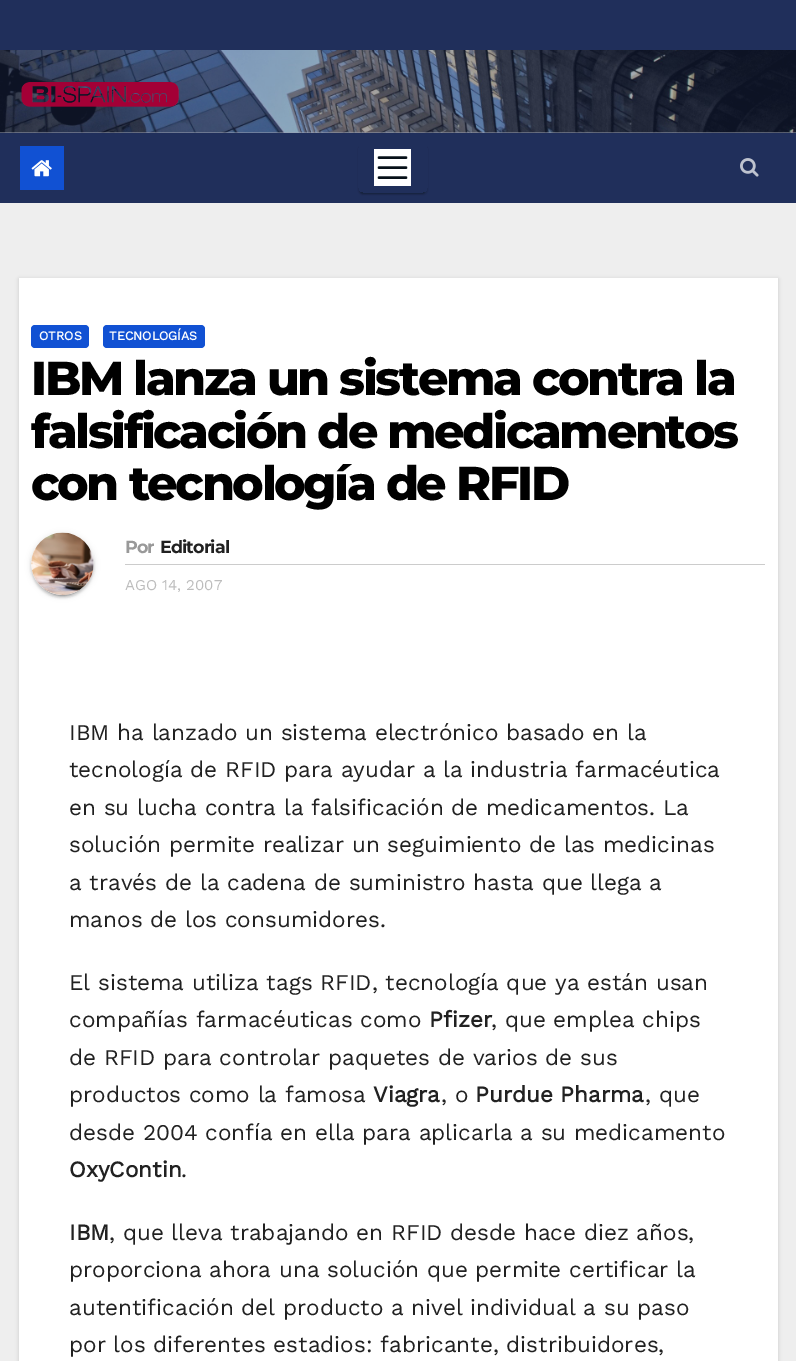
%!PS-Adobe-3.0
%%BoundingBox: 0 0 796 1361
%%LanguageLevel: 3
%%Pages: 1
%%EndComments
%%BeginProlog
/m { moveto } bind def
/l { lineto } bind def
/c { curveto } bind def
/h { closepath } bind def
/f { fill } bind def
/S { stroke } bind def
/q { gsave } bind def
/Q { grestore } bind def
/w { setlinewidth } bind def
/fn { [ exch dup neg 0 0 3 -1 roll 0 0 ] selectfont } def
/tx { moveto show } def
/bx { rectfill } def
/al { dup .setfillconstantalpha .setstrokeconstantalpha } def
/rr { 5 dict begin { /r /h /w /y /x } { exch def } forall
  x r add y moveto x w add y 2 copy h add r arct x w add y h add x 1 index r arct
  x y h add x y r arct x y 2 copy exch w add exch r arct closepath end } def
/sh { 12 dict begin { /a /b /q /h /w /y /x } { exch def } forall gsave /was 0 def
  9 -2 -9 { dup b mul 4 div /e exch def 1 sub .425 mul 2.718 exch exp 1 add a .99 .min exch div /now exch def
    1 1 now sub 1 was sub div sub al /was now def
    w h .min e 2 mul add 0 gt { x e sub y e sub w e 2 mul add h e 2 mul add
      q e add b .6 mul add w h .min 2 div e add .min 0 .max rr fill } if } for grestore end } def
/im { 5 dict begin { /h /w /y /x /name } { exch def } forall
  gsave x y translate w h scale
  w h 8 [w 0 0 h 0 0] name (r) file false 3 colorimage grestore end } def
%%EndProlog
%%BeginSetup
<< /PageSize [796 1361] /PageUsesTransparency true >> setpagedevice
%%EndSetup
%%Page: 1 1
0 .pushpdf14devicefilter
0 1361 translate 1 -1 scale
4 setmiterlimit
0.933 setgray
0 0 796 1361 bx
0.612 0.635 0.702 setrgbcolor
0 132 796 1 bx
0.125 0.184 0.357 setrgbcolor
0 0 796 50 bx
(image0.raw) 0 50 796 83 im
(image1.raw) 21 82 158 25 im
0 133 796 70 bx
0.067 0.318 0.827 setrgbcolor
20 146 44 44 bx
(image2.raw) 31 160 21 17 im
q
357 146 m 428 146 l 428 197 l 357 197 l h 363 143 m 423 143 l 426 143 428 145 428 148 c 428 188 l 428 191 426 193 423 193 c 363 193 l 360 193 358 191 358 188 c 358 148 l 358 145 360 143 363 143 c h eoclip newpath
0 setgray
360 149 65 45 2.5 0.5 0.2 sh
Q
q
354 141 m 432 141 l 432 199 l 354 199 l h 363 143 m 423 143 l 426 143 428 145 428 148 c 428 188 l 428 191 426 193 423 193 c 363 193 l 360 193 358 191 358 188 c 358 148 l 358 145 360 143 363 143 c h eoclip newpath
0 setgray
358 145 70 50 5 1 0.14 sh
Q
1 setgray
374 149 37 37 bx
0.024 0.063 0.094 setrgbcolor
2.5 w
1 setlinecap
379 157.5 m 406 157.5 l 379 167.5 m 406 167.5 l 379 177.5 m 406 177.5 l S
(image3.raw) 740 158 19 19 im
0 setgray
19 279 759 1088 0 2 0.15 sh
1 setgray
19 278 759 1083 bx
0.067 0.318 0.827 setrgbcolor
31 325 58 23 4 rr f
/WorkSans-Bold 12.5 fn
1 setgray
(OTROS) 39 340 tx
0.067 0.318 0.827 setrgbcolor
103 325 102 23 4 rr f
1 setgray
(TECNOLOGÍAS) 109 340 tx
/Montserrat-ExtraBold 47.5 fn
0 setgray
31 395 m -2.4 0 (IBM lanza un sistema contra la) ashow
31 448 m -2.4 0 (falsificación de medicamentos) ashow
31 500 m -2.4 0 (con tecnología de RFID) ashow
31 534 63 62 31 3 0.12 sh
34 539 57 57 28.5 0.5 0.2 sh
31 535 63 63 31.5 1 0.14 sh
(image4.raw) 31 532 63 63 im
0.8 setgray
125 564 640 1 bx
/Montserrat-Bold 17.5 fn
0.6 setgray
125 553 m -0.9 0 (Por) ashow
0.129 setgray
160 553 m -0.9 0 (Editorial) ashow
/WorkSans-Regular 15 fn
0.741 setgray
(AGO 14, 2007) 125 590 tx
/WorkSans-Regular 22.5 fn
0.129 setgray
(IBM ha lanzado un sistema electrónico basado en la) 69 740 tx
(tecnología de RFID para ayudar a la industria farmacéutica) 69 777 tx
(en su lucha contra la falsificación de medicamentos. La) 69 815 tx
(solución permite realizar un seguimiento de las medicinas) 69 852 tx
(a través de la cadena de suministro hasta que llega a) 69 890 tx
(manos de los consumidores.) 69 927 tx
(El sistema utiliza tags RFID, tecnología que ya están usan) 69 990 tx
(compañías farmacéuticas como) 69 1027 tx
/WorkSans-Bold 22.5 fn
(Pfizer) 429 1027 tx
/WorkSans-Regular 22.5 fn
(, que emplea chips) 491 1027 tx
(de RFID para controlar paquetes de varios de sus) 69 1065 tx
(productos como la famosa) 69 1102 tx
/WorkSans-Bold 22.5 fn
(Viagra) 373 1102 tx
/WorkSans-Regular 22.5 fn
(, o) 441 1102 tx
/WorkSans-Bold 22.5 fn
(Purdue Pharma) 475 1102 tx
/WorkSans-Regular 22.5 fn
(, que) 645 1102 tx
(desde 2004 confía en ella para aplicarla a su medicamento) 69 1140 tx
/WorkSans-Bold 22.5 fn
(OxyContin) 69 1177 tx
/WorkSans-Regular 22.5 fn
(.) 181 1177 tx
/WorkSans-Bold 22.5 fn
(IBM) 69 1240 tx
/WorkSans-Regular 22.5 fn
(, que lleva trabajando en RFID desde hace diez años,) 109 1240 tx
(proporciona ahora una solución que permite certificar la) 69 1277 tx
(autentificación del producto a nivel individual a su paso) 69 1315 tx
(por los diferentes estadios: fabricante, distribuidores,) 69 1352 tx
.poppdf14devicefilter showpage
%%EOF
